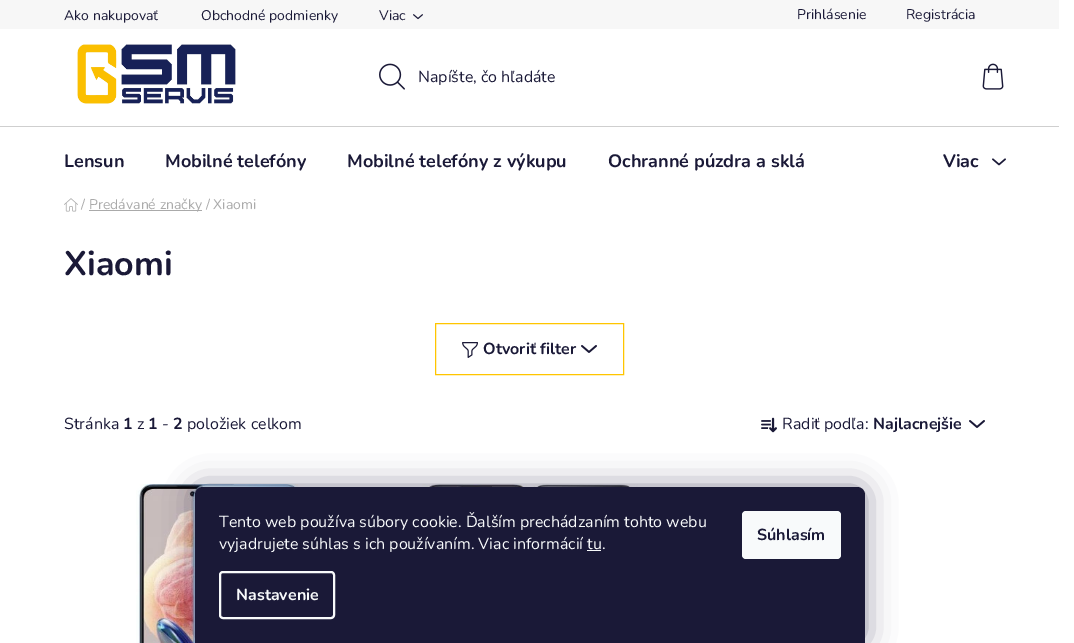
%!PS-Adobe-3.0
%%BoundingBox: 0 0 1074 643
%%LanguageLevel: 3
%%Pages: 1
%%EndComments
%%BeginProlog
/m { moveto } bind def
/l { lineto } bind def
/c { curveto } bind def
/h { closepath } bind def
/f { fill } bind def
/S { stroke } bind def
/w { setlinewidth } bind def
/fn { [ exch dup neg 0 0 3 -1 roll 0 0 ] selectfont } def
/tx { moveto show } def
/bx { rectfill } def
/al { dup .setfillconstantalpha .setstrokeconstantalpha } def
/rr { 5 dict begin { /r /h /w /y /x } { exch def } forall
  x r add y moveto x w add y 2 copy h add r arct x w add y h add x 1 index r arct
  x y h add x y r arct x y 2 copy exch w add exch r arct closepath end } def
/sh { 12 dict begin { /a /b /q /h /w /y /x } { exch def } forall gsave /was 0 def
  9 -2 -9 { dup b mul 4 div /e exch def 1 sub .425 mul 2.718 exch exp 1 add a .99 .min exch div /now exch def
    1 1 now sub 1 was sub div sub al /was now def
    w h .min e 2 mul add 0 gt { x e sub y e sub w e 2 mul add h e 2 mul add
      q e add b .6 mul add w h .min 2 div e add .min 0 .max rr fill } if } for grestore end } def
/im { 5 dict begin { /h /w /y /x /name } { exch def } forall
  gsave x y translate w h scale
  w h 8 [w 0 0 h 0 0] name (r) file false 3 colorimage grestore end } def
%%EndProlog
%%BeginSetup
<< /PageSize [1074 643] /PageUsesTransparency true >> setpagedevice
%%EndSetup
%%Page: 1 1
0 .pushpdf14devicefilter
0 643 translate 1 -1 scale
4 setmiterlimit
1 setgray
0 0 1074 643 bx
0.969 setgray
0 0 1059 29 bx
/Nunito-Regular 14 fn
0.102 0.098 0.216 setrgbcolor
(Ako nakupovať) 64 20 tx
(Obchodné podmienky) 201 20 tx
(Viac) 379 20 tx
(image0.raw) 413 14 10 6 im
(Prihlásenie) 797 19 tx
(Registrácia) 906 19 tx
(image1.raw) 77 44 159 60 im
(image2.raw) 379 63 26 27 im
/Nunito-Regular 16 fn
(Napíšte, čo hľadáte) 418 82 tx
(image3.raw) 982 63 22 27 im
0.812 setgray
0 126 1059 1 bx
/Nunito-Bold 18 fn
0.102 0.098 0.216 setrgbcolor
(Lensun) 64 167 tx
(Mobilné telefóny) 165 167 tx
(Mobilné telefóny z výkupu) 347 167 tx
(Ochranné púzdra a sklá) 608 167 tx
(Viac) 943 167 tx
(image4.raw) 992 158 14 8 im
(image5.raw) 64 198 14 14 im
/Nunito-Regular 14 fn
0.667 setgray
(/) 81 209 tx
89 210 113 1 bx
(Predávané značky / Xiaomi) 89 209 tx
/Nunito-Bold 34 fn
0.102 0.098 0.216 setrgbcolor
(Xiaomi) 64 275 tx
1 0.773 0 setrgbcolor
435.5 323.5 188 51 rectstroke
(image6.raw) 462 342 16 16 im
/Nunito-Bold 16 fn
0.102 0.098 0.216 setrgbcolor
(Otvoriť filter) 483 354 tx
(image7.raw) 581 345 16 8 im
/Nunito-Regular 16 fn
(Stránka) 64 429 tx
/Nunito-Bold 16 fn
(1) 123 429 tx
/Nunito-Regular 16 fn
(z) 137 429 tx
/Nunito-Bold 16 fn
(1) 148 429 tx
/Nunito-Regular 16 fn
(-) 162 429 tx
/Nunito-Bold 16 fn
(2) 173 429 tx
/Nunito-Regular 16 fn
(položiek celkom) 187 429 tx
(image8.raw) 761 417 16 16 im
(Radiť podľa:) 782 429 tx
/Nunito-Bold 16 fn
(Najlacnejšie) 873 429 tx
(image7.raw) 969 420 16 8 im
(image9.raw) 136 484 174 159 im
(image10.raw) 422 484 216 3 im
0.106 0.098 0.224 setrgbcolor
195 487 670 156 8 15 0.5 sh
0.102 0.098 0.216 setrgbcolor
203 487 m 857 487 l 861.5 487 865 490.5 865 495 c 865 643 l 195 643 l 195 495 l 195 490.5 198.5 487 203 487 c h f
/Nunito-Regular 16 fn
0.973 0.98 0.984 setrgbcolor
(Tento web používa súbory cookie. Ďalším prechádzaním tohto webu) 219 527 tx
(vyjadrujete súhlas s ich používaním. Viac informácií tu.) 219 549 tx
587 550 14 1 bx
2 w
220 572 114 46 3 rr S
/Nunito-Bold 16 fn
(Nastavenie) 236 600 tx
742 511 99 48 4 rr f
0.102 0.098 0.216 setrgbcolor
(Súhlasím) 757 540 tx
.poppdf14devicefilter showpage
%%EOF
